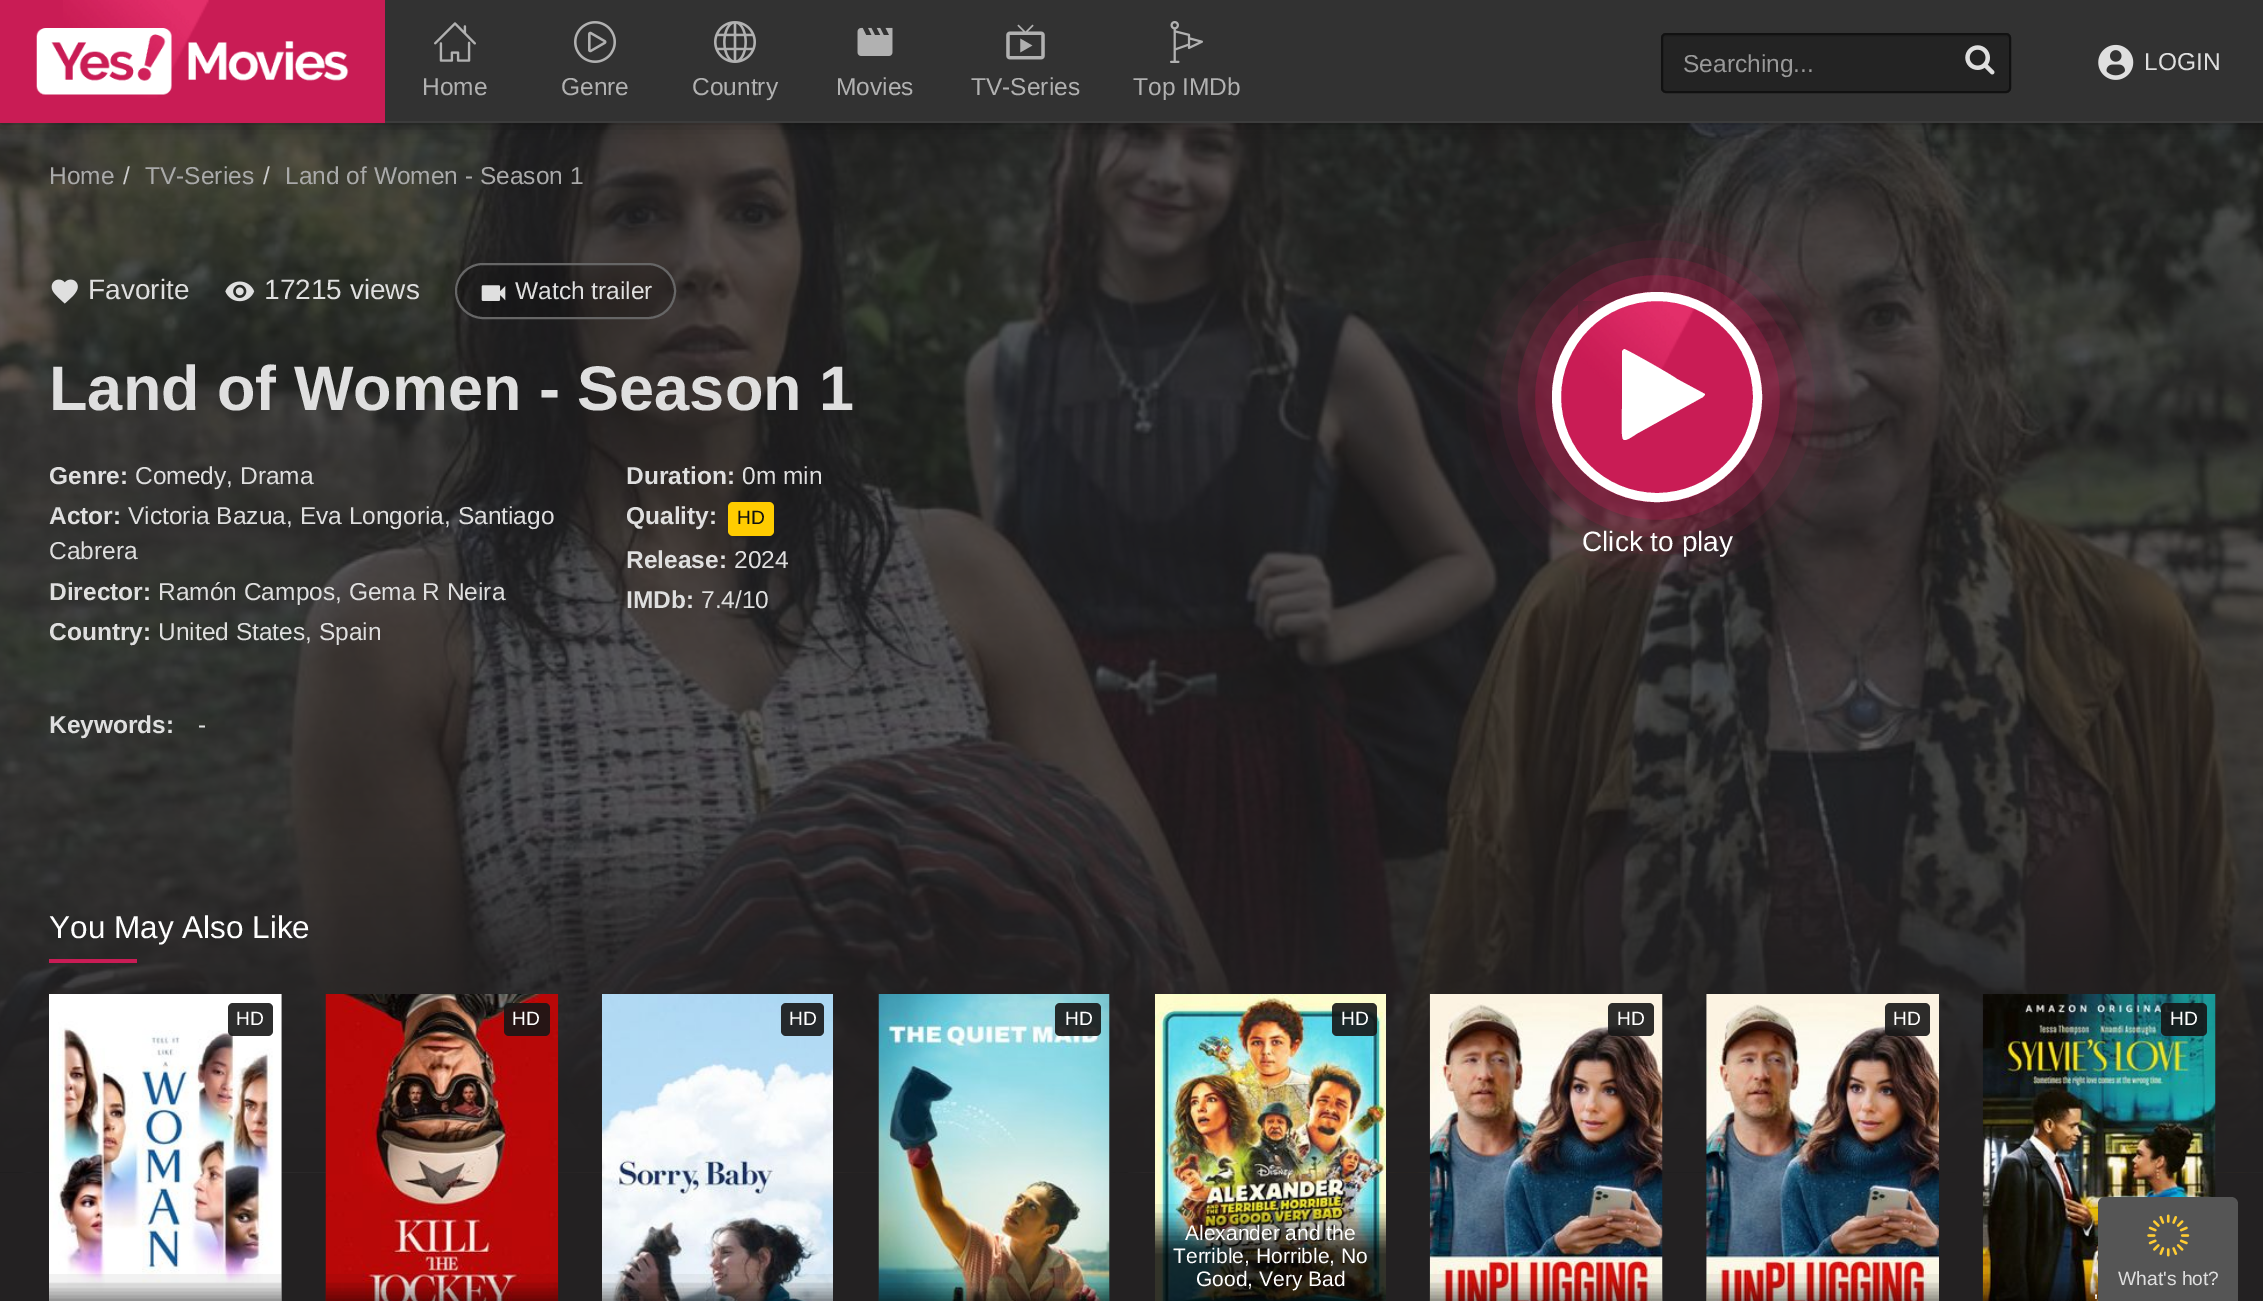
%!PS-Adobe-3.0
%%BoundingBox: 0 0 2263 1301
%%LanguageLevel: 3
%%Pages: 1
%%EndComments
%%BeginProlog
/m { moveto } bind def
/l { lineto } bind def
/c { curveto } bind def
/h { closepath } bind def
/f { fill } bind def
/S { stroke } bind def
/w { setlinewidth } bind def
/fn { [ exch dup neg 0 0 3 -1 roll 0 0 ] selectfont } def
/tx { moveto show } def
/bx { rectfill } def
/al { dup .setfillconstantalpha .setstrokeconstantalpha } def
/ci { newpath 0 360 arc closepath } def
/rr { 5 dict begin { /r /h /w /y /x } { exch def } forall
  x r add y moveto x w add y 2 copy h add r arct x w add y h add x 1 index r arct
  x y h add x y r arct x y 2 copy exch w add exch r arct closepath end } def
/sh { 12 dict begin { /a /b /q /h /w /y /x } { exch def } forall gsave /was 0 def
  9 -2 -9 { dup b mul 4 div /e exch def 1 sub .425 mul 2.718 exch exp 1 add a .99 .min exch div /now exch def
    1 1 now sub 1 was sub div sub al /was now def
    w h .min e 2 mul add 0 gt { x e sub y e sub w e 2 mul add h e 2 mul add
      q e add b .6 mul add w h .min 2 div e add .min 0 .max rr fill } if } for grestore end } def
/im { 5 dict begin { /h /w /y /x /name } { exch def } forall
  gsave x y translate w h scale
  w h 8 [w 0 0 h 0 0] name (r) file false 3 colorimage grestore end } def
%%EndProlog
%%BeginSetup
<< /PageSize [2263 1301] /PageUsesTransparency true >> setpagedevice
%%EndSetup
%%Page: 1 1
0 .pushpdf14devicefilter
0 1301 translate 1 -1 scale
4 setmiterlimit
0.137 0.129 0.133 setrgbcolor
0 0 2263 1301 bx
(image10.raw) 0 123 2263 1050 im
0 setgray
0 0 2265 123 0 9 0.5 sh
0.196 setgray
385 0 1878 121 bx
0.788 0.11 0.333 setrgbcolor
0 0 385 123 bx
(image0.raw) 63 0 146 98 im
(image1.raw) 36 28 313 67 im
0.137 setgray
1661 33 350 60 5 rr f
0.125 setgray
1666 37 m 2006 37 l 2007 37 2009 38 2009 40 c 2009 39 l 2009 37 2007 35 2005 35 c 1667 35 l 1665 35 1664 36 1663 38 c h f
0.067 setgray
2 w
1662 34 348 58 4 rr S
/LiberationSans-Regular 24.5 fn
0.6 setgray
(Searching...) 1683 72 tx
(image2.raw) 1965 45 30 30 im
(image3.raw) 2098 44 36 36 im
0.875 setgray
(LOGIN) 2144 70 tx
(image4.raw) 434 22 42 40 im
0.694 setgray
(Home) 422 95 tx
(image5.raw) 574 21 42 42 im
(Genre) 561 95 tx
(image6.raw) 714 21 42 42 im
(Country) 692 95 tx
(image7.raw) 857 27 36 29 im
(Movies) 836 95 tx
(image8.raw) 1006 24 39 36 im
(TV-Series) 971 95 tx
(image9.raw) 1170 21 33 42 im
(Top IMDb) 1133 95 tx
0.235 setgray
385 121 1878 2 bx
(image11.raw) 0 808 2263 365 im
0.667 setgray
(Home) 49 184 tx
0.8 setgray
(/) 123 184 tx
0.667 setgray
(TV-Series) 145 184 tx
0.8 setgray
(/) 263 184 tx
0.667 setgray
(Land of Women - Season 1) 285 184 tx
(image12.raw) 51 279 27 25 im
/LiberationSans-Regular 28 fn
0.875 setgray
(Favorite) 88 299 tx
(image13.raw) 225 281 30 21 im
(17215 views) 264 299 tx
0.2 al
0 setgray
456 264 219 54 27 rr f
1 al
0.4 setgray
456 264 219 54 27 rr S
(image14.raw) 481 285 25 16 im
/LiberationSans-Regular 24.5 fn
0.875 setgray
(Watch trailer) 515 299 tx
/LiberationSans-Bold 63 fn
(Land of Women - Season 1) 49 410 tx
/LiberationSans-Bold 24.5 fn
(Genre:) 49 484 tx
/LiberationSans-Regular 24.5 fn
(Comedy, Drama) 135 484 tx
/LiberationSans-Bold 24.5 fn
(Actor:) 49 524 tx
/LiberationSans-Regular 24.5 fn
(Victoria Bazua, Eva Longoria, Santiago) 128 524 tx
(Cabrera) 49 559 tx
/LiberationSans-Bold 24.5 fn
(Director:) 49 600 tx
/LiberationSans-Regular 24.5 fn
(Ramón Campos, Gema R Neira) 158 600 tx
/LiberationSans-Bold 24.5 fn
(Country:) 49 640 tx
/LiberationSans-Regular 24.5 fn
(United States, Spain) 158 640 tx
/LiberationSans-Bold 24.5 fn
(Duration:) 626 484 tx
/LiberationSans-Regular 24.5 fn
(0m min) 742 484 tx
/LiberationSans-Bold 24.5 fn
(Quality:) 626 524 tx
1 0.8 0 setrgbcolor
728 502 46 34 5 rr f
/LiberationSans-Regular 19.25 fn
0.067 setgray
(HD) 737 524 tx
/LiberationSans-Bold 24.5 fn
0.875 setgray
(Release:) 626 568 tx
/LiberationSans-Regular 24.5 fn
(2024) 734 568 tx
/LiberationSans-Bold 24.5 fn
(IMDb:) 626 608 tx
/LiberationSans-Regular 24.5 fn
(7.4/10) 701 608 tx
/LiberationSans-Bold 24.5 fn
(Keywords:) 49 733 tx
/LiberationSans-Regular 24.5 fn
(-) 198 733 tx
0.78 0.11 0.329 setrgbcolor
1544 284 227 227 113.5 35 1 sh
0.788 0.11 0.333 setrgbcolor
1657 397 105 ci f
(image15.raw) 1578 301 118 98 im
1 setgray
9 w
1657 397 100.5 ci S
1703 397 m 1638 433 l 1637 433 1625 443 1623 439 c 1621 437 1622 412 1622 409 c 1622 351 l 1624 349 l 1626 349 1672 375 1677 379 c 1703 393 l 1705 394 l 1705 395 1704 396 1703 397 c h f
/LiberationSans-Regular 28 fn
(Click to play) 1582 551 tx
/LiberationSans-Regular 31.5 fn
(You May Also Like) 49 938 tx
0.788 0.11 0.333 setrgbcolor
49 959 88 4 bx
(image16.raw) 49 994 233 307 im
0.9 al
0.086 setgray
228 1003 45 33 5 rr f
/LiberationSans-Regular 19.25 fn
1 al
1 setgray
(HD) 236 1025 tx
(image17.raw) 49 1274 233 27 im
(image18.raw) 325 994 234 307 im
0.9 al
0.086 setgray
504 1003 46 33 5 rr f
1 al
1 setgray
(HD) 512 1025 tx
(image19.raw) 325 1274 233 27 im
(image20.raw) 602 994 231 307 im
0.9 al
0.086 setgray
781 1003 43 33 5 rr f
1 al
1 setgray
(HD) 789 1025 tx
(image21.raw) 602 1274 231 27 im
(image22.raw) 878 994 232 307 im
0.9 al
0.086 setgray
1055 1003 46 33 5 rr f
1 al
1 setgray
(HD) 1065 1025 tx
(image23.raw) 878 1274 232 27 im
(image24.raw) 1155 994 231 307 im
0.9 al
0.086 setgray
1332 1003 45 33 5 rr f
1 al
1 setgray
(HD) 1341 1025 tx
(image25.raw) 1155 1204 231 97 im
/LiberationSans-Regular 21 fn
(Alexander and the) 1185 1240 tx
(Terrible, Horrible, No) 1173 1263 tx
(Good, Very Bad) 1196 1286 tx
(image26.raw) 1429 994 234 307 im
0.9 al
0.086 setgray
1608 1003 46 33 5 rr f
/LiberationSans-Regular 19.25 fn
1 al
1 setgray
(HD) 1617 1025 tx
(image27.raw) 1430 1274 233 27 im
(image28.raw) 1706 994 233 307 im
0.9 al
0.086 setgray
1885 1003 45 33 5 rr f
1 al
1 setgray
(HD) 1893 1025 tx
(image29.raw) 1706 1274 233 27 im
(image30.raw) 1982 994 234 307 im
0.9 al
0.086 setgray
2161 1003 46 33 5 rr f
1 al
1 setgray
(HD) 2170 1025 tx
(image31.raw) 1983 1274 115 27 im
/LiberationSans-Regular 21 fn
(') 2094 1309 tx
0.333 setgray
2105 1197 m 2231 1197 l 2235 1197 2238 1200 2238 1204 c 2238 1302 l 2098 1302 l 2098 1204 l 2098 1200 2101 1197 2105 1197 c h f
(image32.raw) 2147 1214 43 43 im
/LiberationSans-Regular 19.25 fn
0.875 setgray
(What's hot?) 2118 1285 tx
.poppdf14devicefilter showpage
%%EOF
